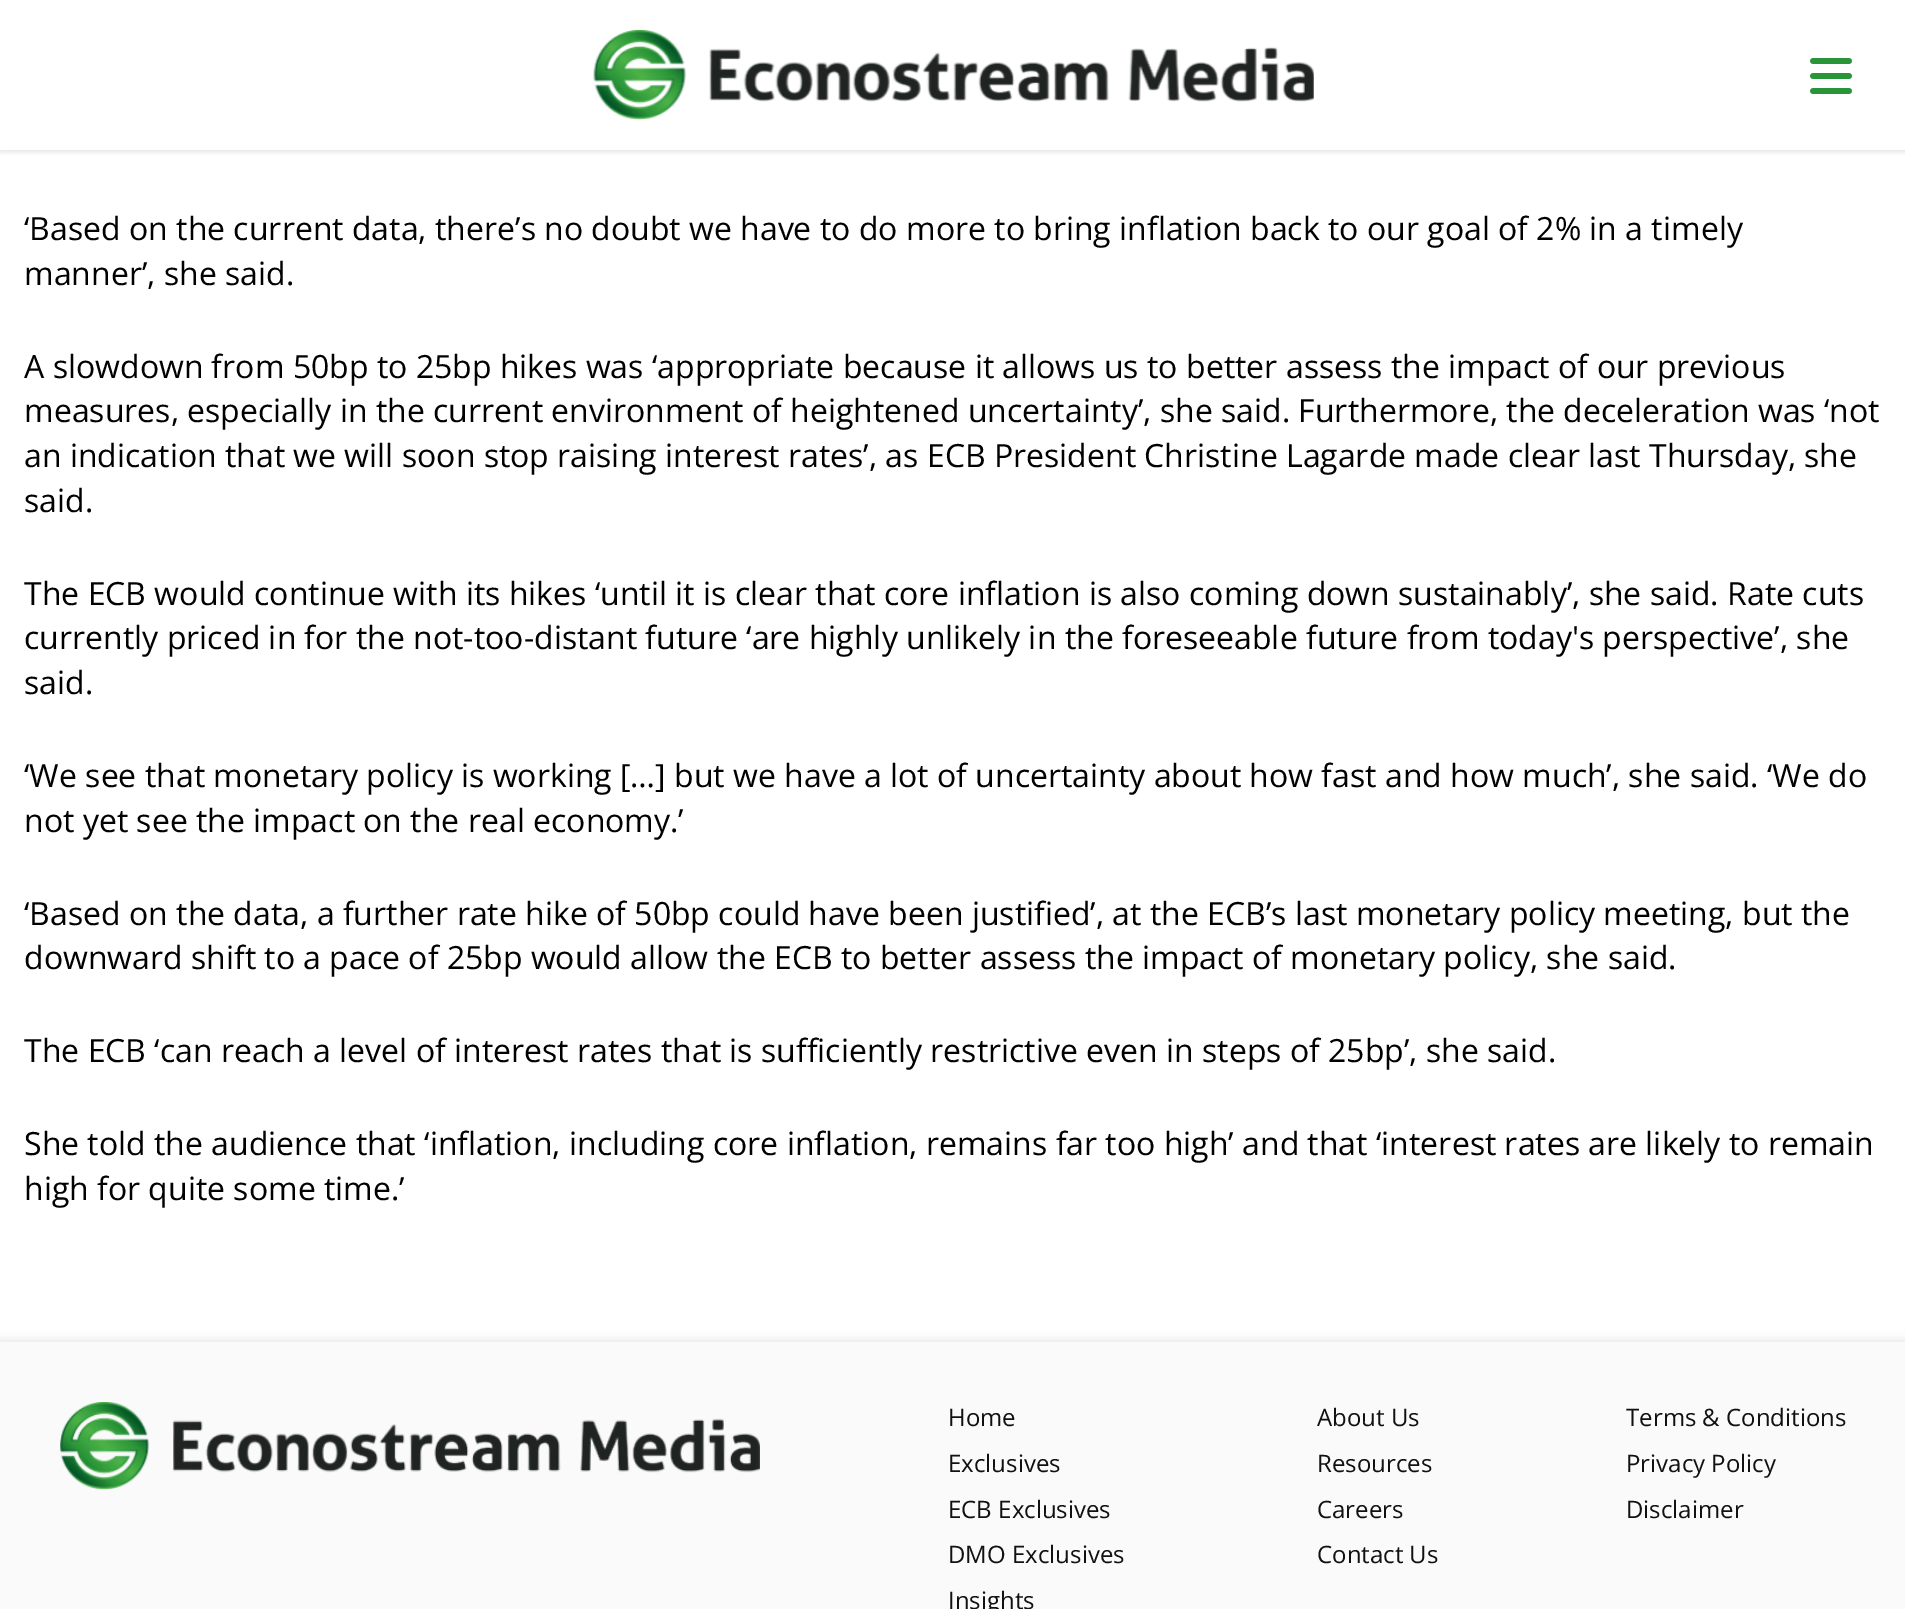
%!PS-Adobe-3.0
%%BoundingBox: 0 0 1905 1609
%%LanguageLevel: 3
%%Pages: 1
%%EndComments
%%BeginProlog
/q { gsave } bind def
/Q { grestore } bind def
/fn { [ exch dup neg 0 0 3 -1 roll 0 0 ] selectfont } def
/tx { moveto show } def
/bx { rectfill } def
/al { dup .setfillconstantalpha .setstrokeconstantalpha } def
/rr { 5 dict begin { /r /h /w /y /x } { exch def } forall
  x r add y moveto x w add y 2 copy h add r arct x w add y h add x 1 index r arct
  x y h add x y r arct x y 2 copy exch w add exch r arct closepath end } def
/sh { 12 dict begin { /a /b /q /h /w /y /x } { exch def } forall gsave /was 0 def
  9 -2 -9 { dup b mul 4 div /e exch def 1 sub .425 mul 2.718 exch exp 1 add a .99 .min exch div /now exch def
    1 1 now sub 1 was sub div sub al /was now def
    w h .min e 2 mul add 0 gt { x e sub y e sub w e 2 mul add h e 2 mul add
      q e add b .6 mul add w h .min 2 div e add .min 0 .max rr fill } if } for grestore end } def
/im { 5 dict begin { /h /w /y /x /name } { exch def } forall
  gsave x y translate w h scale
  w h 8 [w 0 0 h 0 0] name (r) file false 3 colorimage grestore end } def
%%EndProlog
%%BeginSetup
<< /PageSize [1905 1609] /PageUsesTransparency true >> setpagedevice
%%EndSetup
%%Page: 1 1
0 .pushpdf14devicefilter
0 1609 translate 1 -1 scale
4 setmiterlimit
1 setgray
0 0 1905 1609 bx
q
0 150 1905 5 rectclip
0 setgray
0 2 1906 150 0 3 0.11 sh
Q
(image0.raw) 593 30 721 90 im
(image1.raw) 1810 58 42 36 im
/OpenSans-Regular 32 fn
0 setgray
(‘Based on the current data, there’s no doubt we have to do more to bring inflation back to our goal of 2% in a timely) 24 240 tx
(manner’, she said.) 24 285 tx
(A slowdown from 50bp to 25bp hikes was ‘appropriate because it allows us to better assess the impact of our previous) 24 378 tx
(measures, especially in the current environment of heightened uncertainty’, she said. Furthermore, the deceleration was ‘not) 24 422 tx
(an indication that we will soon stop raising interest rates’, as ECB President Christine Lagarde made clear last Thursday, she) 24 467 tx
(said.) 24 512 tx
(The ECB would continue with its hikes ‘until it is clear that core inflation is also coming down sustainably’, she said. Rate cuts) 24 605 tx
(currently priced in for the not-too-distant future ‘are highly unlikely in the foreseeable future from today's perspective’, she) 24 649 tx
(said.) 24 694 tx
(‘We see that monetary policy is working […] but we have a lot of uncertainty about how fast and how much’, she said. ‘We do) 24 787 tx
(not yet see the impact on the real economy.’) 24 832 tx
(‘Based on the data, a further rate hike of 50bp could have been justified’, at the ECB’s last monetary policy meeting, but the) 24 925 tx
(downward shift to a pace of 25bp would allow the ECB to better assess the impact of monetary policy, she said.) 24 969 tx
(The ECB ‘can reach a level of interest rates that is sufficiently restrictive even in steps of 25bp’, she said.) 24 1062 tx
(She told the audience that ‘inflation, including core inflation, remains far too high’ and that ‘interest rates are likely to remain) 24 1155 tx
(high for quite some time.’) 24 1200 tx
0 1340 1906 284 0 5 0.1 sh
0.98 setgray
0 1342 1905 267 bx
(image2.raw) 60 1402 700 88 im
/OpenSans-Regular 24 fn
0.067 setgray
(Home) 948 1426 tx
(Exclusives) 948 1472 tx
(ECB Exclusives) 948 1518 tx
(DMO Exclusives) 948 1563 tx
(Insights) 948 1609 tx
(About Us) 1317 1426 tx
(Resources) 1317 1472 tx
(Careers) 1317 1518 tx
(Contact Us) 1317 1563 tx
(Terms & Conditions) 1626 1426 tx
(Privacy Policy) 1626 1472 tx
(Disclaimer) 1626 1518 tx
.poppdf14devicefilter showpage
%%EOF
